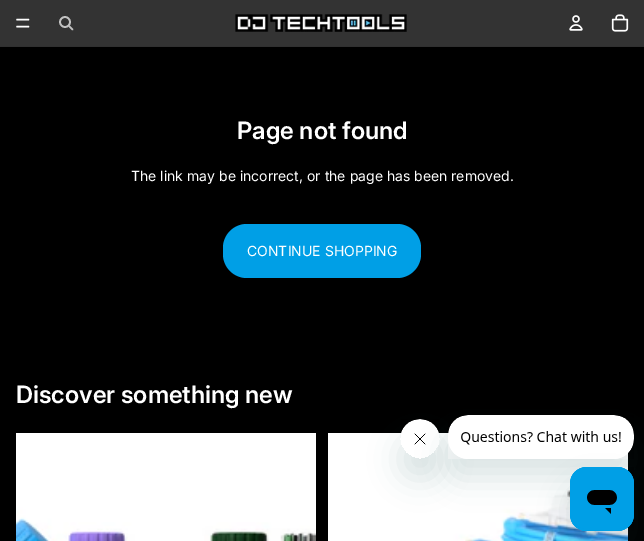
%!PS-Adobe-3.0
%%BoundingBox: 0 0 644 541
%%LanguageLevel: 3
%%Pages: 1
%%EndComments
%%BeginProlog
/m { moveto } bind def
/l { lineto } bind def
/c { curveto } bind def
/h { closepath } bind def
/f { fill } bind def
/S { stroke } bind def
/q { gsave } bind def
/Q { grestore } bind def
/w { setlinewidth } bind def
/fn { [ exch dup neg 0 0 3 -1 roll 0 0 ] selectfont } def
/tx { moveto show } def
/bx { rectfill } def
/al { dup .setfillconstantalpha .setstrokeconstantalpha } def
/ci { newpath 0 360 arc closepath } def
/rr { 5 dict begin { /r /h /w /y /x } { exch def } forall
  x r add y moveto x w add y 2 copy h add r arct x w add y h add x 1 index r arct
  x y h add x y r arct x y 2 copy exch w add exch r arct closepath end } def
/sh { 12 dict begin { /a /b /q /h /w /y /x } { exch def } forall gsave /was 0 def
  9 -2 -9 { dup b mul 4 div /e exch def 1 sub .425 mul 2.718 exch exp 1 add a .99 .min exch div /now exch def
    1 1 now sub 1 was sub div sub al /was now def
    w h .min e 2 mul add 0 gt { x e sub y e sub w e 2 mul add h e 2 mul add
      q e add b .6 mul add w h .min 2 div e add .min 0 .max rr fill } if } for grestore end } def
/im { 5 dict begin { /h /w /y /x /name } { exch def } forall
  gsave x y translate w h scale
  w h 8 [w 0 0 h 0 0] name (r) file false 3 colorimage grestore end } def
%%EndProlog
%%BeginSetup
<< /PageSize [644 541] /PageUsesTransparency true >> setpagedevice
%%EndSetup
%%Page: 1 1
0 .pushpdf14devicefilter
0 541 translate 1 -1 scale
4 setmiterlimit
0 setgray
0 0 644 541 bx
0.2 setgray
0 0 644 46 bx
0.188 setgray
0 46 644 1 bx
1 setgray
1.5 w
1 setlinecap
17 19.5 m 28.5 19.5 l 17 26.5 m 28.5 26.5 l S
0.761 setgray
1.7 w
0 setlinecap
65 22 5 ci S
1 setlinecap
1 setlinejoin
69 26 m 72.5 29.5 l S
(image0.raw) 235 14 172 18 im
(image1.raw) 569 15 14 16 im
(image2.raw) 611 14 18 18 im
/Inter-SemiBold 24 fn
1 setgray
(Page not found) 237 139 tx
/Inter-Regular 14 fn
(The link may be incorrect, or the page has been removed.) 131 181 tx
0 0.624 0.902 setrgbcolor
223 224 198 54 24 rr f
1 setgray
(CONTINUE SHOPPING) 247 256 tx
/Inter-SemiBold 24 fn
(Discover something new) 16 403 tx
(image3.raw) 16 433 300 108 im
(image4.raw) 328 433 300 108 im
q
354 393 m 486 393 l 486 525 l 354 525 l h 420 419 m 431 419 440 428 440 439 c 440 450 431 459 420 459 c 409 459 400 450 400 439 c 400 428 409 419 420 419 c h eoclip newpath
0.09 0.286 0.302 setrgbcolor
400 439 40 40 20 15 0.15 sh
Q
(image6.raw) 401 419 38 26 im
0.09 0.286 0.302 setrgbcolor
448 435 186 44 20 15 0.15 sh
(image5.raw) 448 415 186 44 im
570 487 64 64 16 15 0.15 sh
(image7.raw) 570 467 64 64 im
.poppdf14devicefilter showpage
%%EOF
